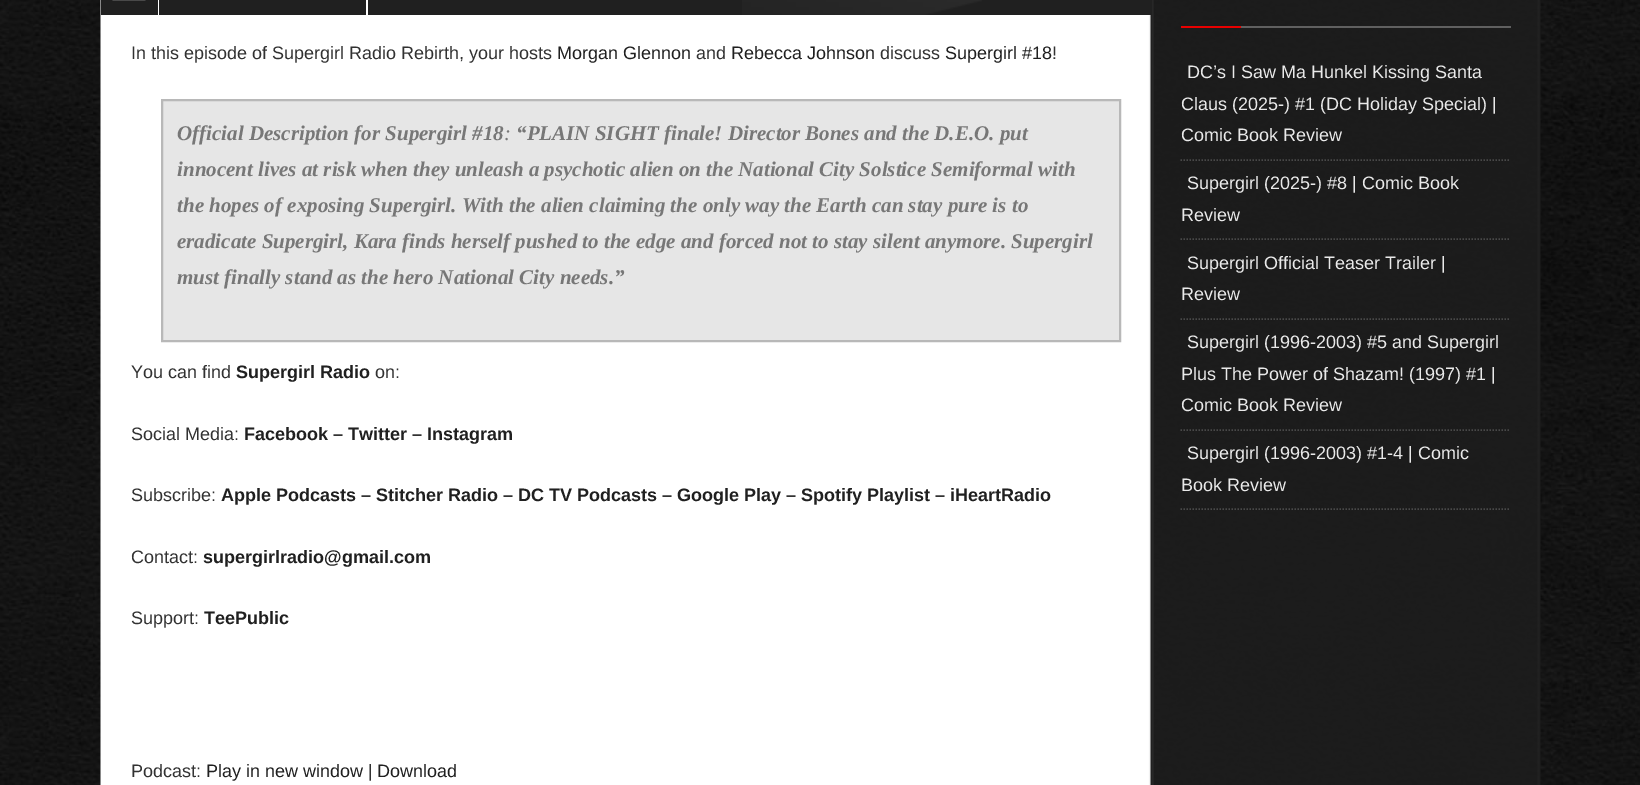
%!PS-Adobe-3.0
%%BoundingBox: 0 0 1640 785
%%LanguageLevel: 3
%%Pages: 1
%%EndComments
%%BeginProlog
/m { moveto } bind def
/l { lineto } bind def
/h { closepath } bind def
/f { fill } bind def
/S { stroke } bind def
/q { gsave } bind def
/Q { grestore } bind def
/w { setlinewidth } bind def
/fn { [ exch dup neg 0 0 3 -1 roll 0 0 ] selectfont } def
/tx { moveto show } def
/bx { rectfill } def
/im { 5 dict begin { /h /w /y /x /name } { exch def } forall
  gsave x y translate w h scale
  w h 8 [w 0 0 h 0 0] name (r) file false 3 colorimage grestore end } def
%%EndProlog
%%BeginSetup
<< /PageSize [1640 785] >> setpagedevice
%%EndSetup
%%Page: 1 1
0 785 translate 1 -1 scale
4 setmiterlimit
1 setgray
0 0 1640 785 bx
(image0.raw) 0 0 1640 785 im
(image1.raw) 100 0 1441 785 im
0.125 setgray
101 0 57 15 bx
(image2.raw) 112 0 34 1 im
159 0 207 15 bx
368 0 783 15 bx
(image3.raw) 742 0 240 15 im
/LiberationSans-Regular 18 fn
0.196 setgray
(In this episode of Supergirl Radio Rebirth, your hosts) 131 59 tx
0.125 setgray
(Morgan Glennon) 557 59 tx
0.196 setgray
(and) 696 59 tx
0.125 setgray
(Rebecca Johnson) 731 59 tx
0.196 setgray
(discuss) 880 59 tx
0.125 setgray
(Supergirl #18) 945 59 tx
0.196 setgray
(!) 1052 59 tx
0.902 setgray
162 100 m 1120 100 l 1120 341 l 162 341 l h q f Q
0.722 setgray
2 w
S
/LiberationSerif-BoldItalic 21 fn
0.467 setgray
(Official Description for Supergirl #18) 177 140 tx
/LiberationSerif-Italic 21 fn
(:) 504 140 tx
/LiberationSerif-BoldItalic 21 fn
(“PLAIN SIGHT finale! Director Bones and the D.E.O. put) 516 140 tx
(innocent lives at risk when they unleash a psychotic alien on the National City Solstice Semiformal with) 177 176 tx
(the hopes of exposing Supergirl. With the alien claiming the only way the Earth can stay pure is to) 177 212 tx
(eradicate Supergirl, Kara finds herself pushed to the edge and forced not to stay silent anymore. Supergirl) 177 248 tx
(must finally stand as the hero National City needs.”) 177 284 tx
/LiberationSans-Regular 18 fn
0.196 setgray
(You can find) 131 378 tx
/LiberationSans-Bold 18 fn
0.125 setgray
(Supergirl Radio) 236 378 tx
/LiberationSans-Regular 18 fn
0.196 setgray
(on:) 375 378 tx
(Social Media:) 131 440 tx
/LiberationSans-Bold 18 fn
0.125 setgray
(Facebook) 244 440 tx
0.196 setgray
(–) 333 440 tx
0.125 setgray
(Twitter) 348 440 tx
0.196 setgray
(–) 412 440 tx
0.125 setgray
(Instagram) 427 440 tx
/LiberationSans-Regular 18 fn
0.196 setgray
(Subscribe:) 131 501 tx
/LiberationSans-Bold 18 fn
0.125 setgray
(Apple Podcasts) 221 501 tx
0.196 setgray
(–) 361 501 tx
0.125 setgray
(Stitcher Radio) 376 501 tx
0.196 setgray
(–) 503 501 tx
0.125 setgray
(DC TV Podcasts) 518 501 tx
0.196 setgray
(–) 662 501 tx
0.125 setgray
(Google Play) 677 501 tx
0.196 setgray
(–) 786 501 tx
0.125 setgray
(Spotify Playlist) 801 501 tx
0.196 setgray
(–) 935 501 tx
0.125 setgray
(iHeartRadio) 950 501 tx
/LiberationSans-Regular 18 fn
0.196 setgray
(Contact:) 131 563 tx
/LiberationSans-Bold 18 fn
0.125 setgray
(supergirlradio@gmail.com) 203 563 tx
/LiberationSans-Regular 18 fn
0.196 setgray
(Support:) 131 624 tx
/LiberationSans-Bold 18 fn
0.125 setgray
(TeePublic) 204 624 tx
/LiberationSans-Regular 18 fn
0.196 setgray
(Podcast:) 131 777 tx
0.125 setgray
(Play in new window) 206 777 tx
0.196 setgray
(|) 368 777 tx
0.125 setgray
(Download) 377 777 tx
0.376 setgray
1241 26 270 2 bx
0.91 0 0 setrgbcolor
1181 26 60 2 bx
0.286 setgray
1.5 w
[1.5 1.5] 0 setdash
1180.5 160 m 1510.5 160 l S
0.914 setgray
(DC’s I Saw Ma Hunkel Kissing Santa) 1187 78 tx
(Claus \(2025-\) #1 \(DC Holiday Special\) |) 1181 110 tx
(Comic Book Review) 1181 141 tx
0.286 setgray
1180.5 239 m 1510.5 239 l S
0.914 setgray
(Supergirl \(2025-\) #8 | Comic Book) 1187 189 tx
(Review) 1181 221 tx
0.286 setgray
1180.5 319 m 1510.5 319 l S
0.914 setgray
(Supergirl Official Teaser Trailer |) 1187 269 tx
(Review) 1181 300 tx
0.286 setgray
1180.5 430 m 1510.5 430 l S
0.914 setgray
(Supergirl \(1996-2003\) #5 and Supergirl) 1187 348 tx
(Plus The Power of Shazam! \(1997\) #1 |) 1181 380 tx
(Comic Book Review) 1181 411 tx
0.286 setgray
1180.5 509 m 1510.5 509 l S
0.914 setgray
(Supergirl \(1996-2003\) #1-4 | Comic) 1187 459 tx
(Book Review) 1181 491 tx
showpage
%%EOF
